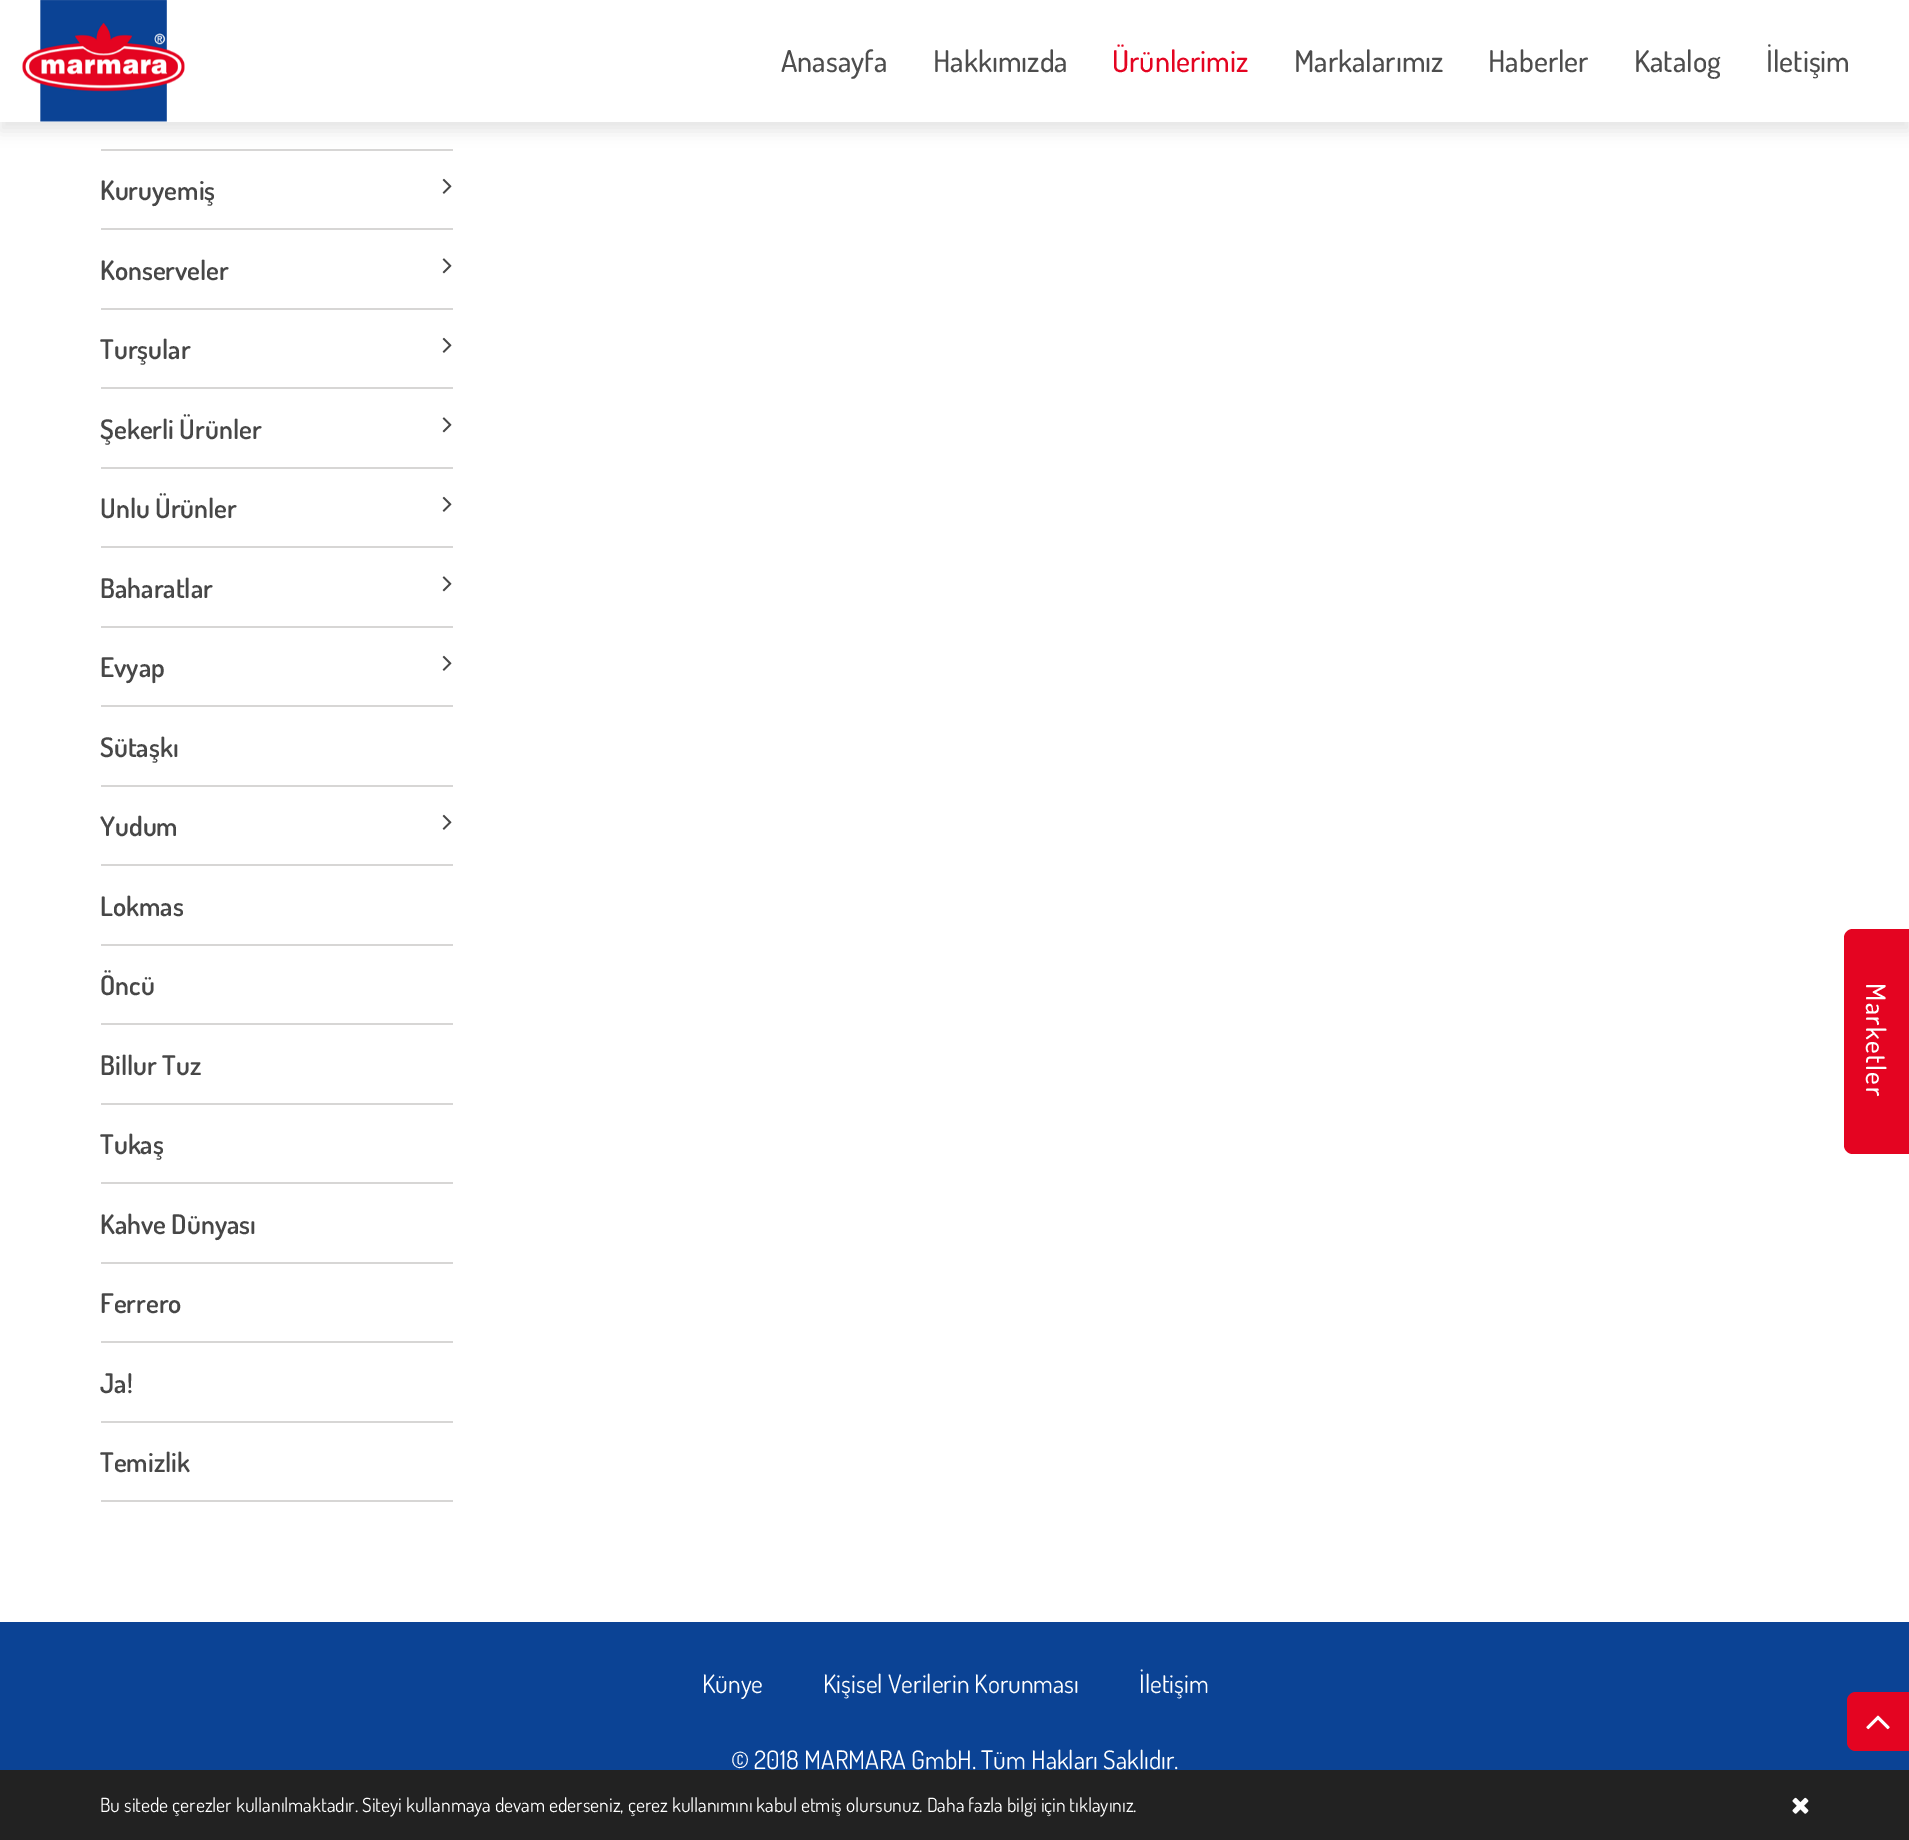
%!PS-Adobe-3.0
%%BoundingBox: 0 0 1909 1840
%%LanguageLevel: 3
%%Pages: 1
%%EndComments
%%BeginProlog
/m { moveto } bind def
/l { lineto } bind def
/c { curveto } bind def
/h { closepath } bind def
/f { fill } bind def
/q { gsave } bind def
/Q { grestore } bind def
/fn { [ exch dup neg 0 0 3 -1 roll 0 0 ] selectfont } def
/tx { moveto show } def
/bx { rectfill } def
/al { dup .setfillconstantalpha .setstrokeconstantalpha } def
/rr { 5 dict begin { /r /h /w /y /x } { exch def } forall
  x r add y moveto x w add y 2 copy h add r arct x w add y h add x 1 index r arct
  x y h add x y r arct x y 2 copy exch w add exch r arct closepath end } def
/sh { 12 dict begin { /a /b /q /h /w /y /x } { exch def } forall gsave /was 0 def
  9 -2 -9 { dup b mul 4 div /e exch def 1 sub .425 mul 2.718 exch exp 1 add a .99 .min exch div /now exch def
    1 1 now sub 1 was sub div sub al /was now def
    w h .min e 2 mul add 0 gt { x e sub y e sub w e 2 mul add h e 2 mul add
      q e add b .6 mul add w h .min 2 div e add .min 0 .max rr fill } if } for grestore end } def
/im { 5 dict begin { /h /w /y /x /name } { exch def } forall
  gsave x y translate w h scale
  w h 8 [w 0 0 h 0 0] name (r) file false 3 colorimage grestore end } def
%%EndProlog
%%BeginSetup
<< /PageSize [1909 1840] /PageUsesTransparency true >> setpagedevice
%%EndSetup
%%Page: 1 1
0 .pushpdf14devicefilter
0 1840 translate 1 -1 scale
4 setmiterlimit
1 setgray
0 0 1909 1840 bx
0.843 0.839 0.835 setrgbcolor
101 149 352 2 bx
0.898 setgray
0 9 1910 122 0 7.5 1 sh
1 setgray
0 0 1909 122 bx
(image0.raw) 22 0 163 122 im
/Dosis-Medium 30 fn
0.302 setgray
(Anasayfa) 781 72 tx
(Hakkımızda) 933 72 tx
0.894 0.016 0.129 setrgbcolor
(Ürünlerimiz) 1112 72 tx
0.302 setgray
(Markalarımız) 1294 72 tx
(Haberler) 1488 72 tx
(Katalog) 1634 72 tx
(İletişim) 1766 72 tx
0.843 0.839 0.835 setrgbcolor
101 228 352 2 bx
/Dosis-SemiBold 27 fn
0.278 setgray
(Kuruyemiş) 100 200 tx
(image1.raw) 442 178 10 16 im
0.843 0.839 0.835 setrgbcolor
101 308 352 2 bx
0.278 setgray
(Konserveler) 100 280 tx
(image2.raw) 442 258 10 16 im
0.843 0.839 0.835 setrgbcolor
101 387 352 2 bx
0.278 setgray
(Turşular) 100 359 tx
(image1.raw) 442 337 10 16 im
0.843 0.839 0.835 setrgbcolor
101 467 352 2 bx
0.278 setgray
(Şekerli Ürünler) 100 439 tx
(image2.raw) 442 417 10 16 im
0.843 0.839 0.835 setrgbcolor
101 546 352 2 bx
0.278 setgray
(Unlu Ürünler) 100 518 tx
(image1.raw) 442 496 10 16 im
0.843 0.839 0.835 setrgbcolor
101 626 352 2 bx
0.278 setgray
(Baharatlar) 100 598 tx
(image2.raw) 442 576 10 16 im
0.843 0.839 0.835 setrgbcolor
101 705 352 2 bx
0.278 setgray
(Evyap) 100 677 tx
(image1.raw) 442 655 10 16 im
0.843 0.839 0.835 setrgbcolor
101 785 352 2 bx
0.278 setgray
(Sütaşkı) 100 757 tx
0.843 0.839 0.835 setrgbcolor
101 864 352 2 bx
0.278 setgray
(Yudum) 100 836 tx
(image1.raw) 442 814 10 16 im
0.843 0.839 0.835 setrgbcolor
101 944 352 2 bx
0.278 setgray
(Lokmas) 100 916 tx
0.843 0.839 0.835 setrgbcolor
101 1023 352 2 bx
0.278 setgray
(Öncü) 100 995 tx
0.843 0.839 0.835 setrgbcolor
101 1103 352 2 bx
0.278 setgray
(Billur Tuz) 100 1075 tx
0.843 0.839 0.835 setrgbcolor
101 1182 352 2 bx
0.278 setgray
(Tukaş) 100 1154 tx
0.843 0.839 0.835 setrgbcolor
101 1262 352 2 bx
0.278 setgray
(Kahve Dünyası) 100 1234 tx
0.843 0.839 0.835 setrgbcolor
101 1341 352 2 bx
0.278 setgray
(Ferrero) 100 1313 tx
0.843 0.839 0.835 setrgbcolor
101 1421 352 2 bx
0.278 setgray
(Ja!) 100 1393 tx
0.843 0.839 0.835 setrgbcolor
101 1500 352 2 bx
0.278 setgray
(Temizlik) 100 1472 tx
0.894 0.016 0.129 setrgbcolor
1853 929 m 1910 929 l 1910 1154 l 1853 1154 l 1848 1154 1844 1150 1844 1145 c 1844 938 l 1844 933 1848 929 1853 929 c h f
/Dosis-Medium 27 fn
1 setgray
q 1866 983 translate 90 rotate 0 0 m 1.5 0 (Marketler) ashow Q
0.043 0.263 0.584 setrgbcolor
0 1622 1909 148 bx
/Dosis-Regular 25.5 fn
1 setgray
(Künye) 702 1693 tx
(Kişisel Verilerin Korunması) 823 1693 tx
(İletişim) 1139 1693 tx
(© 2018 MARMARA GmbH. Tüm Hakları Saklıdır.) 731 1769 tx
0.894 0.016 0.129 setrgbcolor
1856 1692 m 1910 1692 l 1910 1751 l 1856 1751 l 1851 1751 1847 1747 1847 1742 c 1847 1701 l 1847 1696 1851 1692 1856 1692 c h f
(image3.raw) 1866 1715 24 15 im
0.133 setgray
0 1770 1909 70 bx
/Dosis-Regular 19.5 fn
1 setgray
(Bu sitede çerezler kullanılmaktadır. Siteyi kullanmaya devam ederseniz, çerez kullanımını kabul etmiş olursunuz. Daha fazla bilgi için tıklayınız.) 100 1812 tx
(image4.raw) 1792 1797 17 17 im
.poppdf14devicefilter showpage
%%EOF
